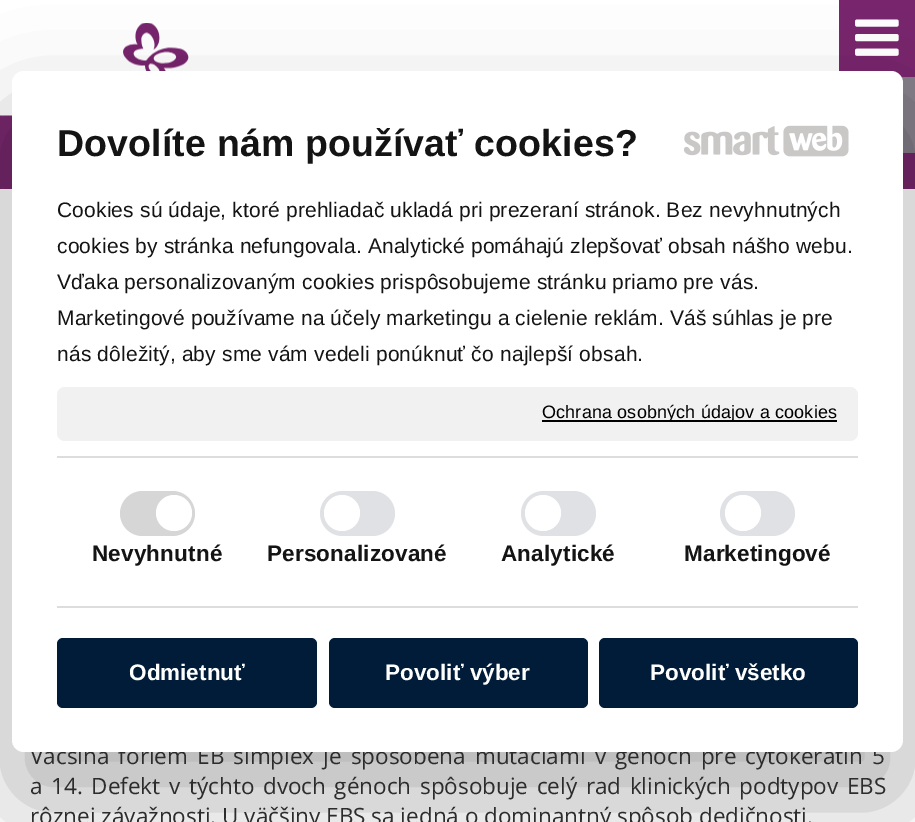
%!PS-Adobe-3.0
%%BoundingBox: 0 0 915 822
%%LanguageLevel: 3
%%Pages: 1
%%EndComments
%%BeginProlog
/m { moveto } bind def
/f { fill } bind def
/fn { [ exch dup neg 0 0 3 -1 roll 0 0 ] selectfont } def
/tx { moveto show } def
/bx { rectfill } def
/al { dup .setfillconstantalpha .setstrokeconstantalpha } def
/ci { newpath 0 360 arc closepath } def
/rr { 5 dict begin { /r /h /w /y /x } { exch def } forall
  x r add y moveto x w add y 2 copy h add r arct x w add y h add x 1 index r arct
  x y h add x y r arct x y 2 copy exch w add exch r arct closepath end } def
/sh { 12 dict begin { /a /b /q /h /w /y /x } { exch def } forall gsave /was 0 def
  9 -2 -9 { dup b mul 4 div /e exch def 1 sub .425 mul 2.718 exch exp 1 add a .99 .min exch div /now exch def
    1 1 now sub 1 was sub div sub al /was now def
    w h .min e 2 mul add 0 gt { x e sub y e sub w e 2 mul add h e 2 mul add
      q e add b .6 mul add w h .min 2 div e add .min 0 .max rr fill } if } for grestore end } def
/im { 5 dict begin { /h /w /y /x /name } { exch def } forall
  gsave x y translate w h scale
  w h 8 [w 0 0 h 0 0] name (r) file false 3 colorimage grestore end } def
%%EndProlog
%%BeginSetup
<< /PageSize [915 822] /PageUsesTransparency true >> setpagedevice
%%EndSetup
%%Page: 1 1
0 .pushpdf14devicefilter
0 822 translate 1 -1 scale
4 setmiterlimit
1 setgray
0 0 915 822 bx
0.471 0.145 0.427 setrgbcolor
839 0 76 77 bx
(image0.raw) 855 19 44 37 im
(image1.raw) 0 115 915 74 im
0.518 0.494 0.537 setrgbcolor
901 77 14 76 bx
(image2.raw) 123 23 66 48 im
0 setgray
12 119 891 681 12 51 0.3 sh
/OpenSans-Regular 22.5 fn
0.176 0.173 0.173 setrgbcolor
30 764 m 3.25 0 32 (Väčšina foriem EB simplex je spôsobená mutáciami v génoch pre cytokeratín 5) widthshow
1 setgray
12 71 891 681 12 rr f
/LiberationSans-Bold 37.5 fn
0.078 setgray
57 156 m 0.15 0 (Dovolíte nám používať cookies?) ashow
(image3.raw) 683 126 97 30 im
(image4.raw) 783 125 66 32 im
/LiberationSans-Regular 21 fn
57 217 m 0.15 0 (Cookies sú údaje, ktoré prehliadač ukladá pri prezeraní stránok. Bez nevyhnutných) ashow
57 253 m 0.15 0 (cookies by stránka nefungovala. Analytické pomáhajú zlepšovať obsah nášho webu.) ashow
57 289 m 0.15 0 (Vďaka personalizovaným cookies prispôsobujeme stránku priamo pre vás.) ashow
57 325 m 0.15 0 (Marketingové používame na účely marketingu a cielenie reklám. Váš súhlas je pre) ashow
57 361 m 0.15 0 (nás dôležitý, aby sme vám vedeli ponúknuť čo najlepší obsah.) ashow
0.945 setgray
57 387 801 54 8 rr f
0 setgray
542 420 295 2 bx
/LiberationSans-Regular 18 fn
542 418 m 0.15 0 (Ochrana osobných údajov a cookies) ashow
0.867 setgray
57 456 801 2 bx
57 606 801 2 bx
0.839 setgray
120 491 75 45 22.5 rr f
1 setgray
174 513 18 ci f
/LiberationSans-Bold 22.5 fn
0.078 setgray
92 561 m 0.15 0 (Nevyhnutné) ashow
0.875 0.882 0.894 setrgbcolor
320 491 75 45 22.5 rr f
1 setgray
342 513 18 ci f
0.078 setgray
267 561 m 0.15 0 (Personalizované) ashow
0.875 0.882 0.894 setrgbcolor
521 491 75 45 22.5 rr f
1 setgray
543 513 18 ci f
0.078 setgray
501 561 m 0.15 0 (Analytické) ashow
0.875 0.882 0.894 setrgbcolor
720 491 75 45 22.5 rr f
1 setgray
743 513 18 ci f
0.078 setgray
684 561 m 0.15 0 (Marketingové) ashow
0.004 0.11 0.22 setrgbcolor
57 638 260 70 6 rr f
1 setgray
(Odmietnuť) 129 680 tx
0.004 0.11 0.22 setrgbcolor
329 638 259 70 6 rr f
1 setgray
(Povoliť výber) 385 680 tx
0.004 0.11 0.22 setrgbcolor
599 638 259 70 6 rr f
1 setgray
(Povoliť všetko) 650 680 tx
/OpenSans-Regular 22.5 fn
0.176 0.173 0.173 setrgbcolor
30 794 m 2.75 0 32 (a 14. Defekt v týchto dvoch génoch spôsobuje celý rad klinických podtypov EBS) widthshow
(rôznej závažnosti. U väčšiny EBS sa jedná o dominantný spôsob dedičnosti.) 30 824 tx
.poppdf14devicefilter showpage
%%EOF
